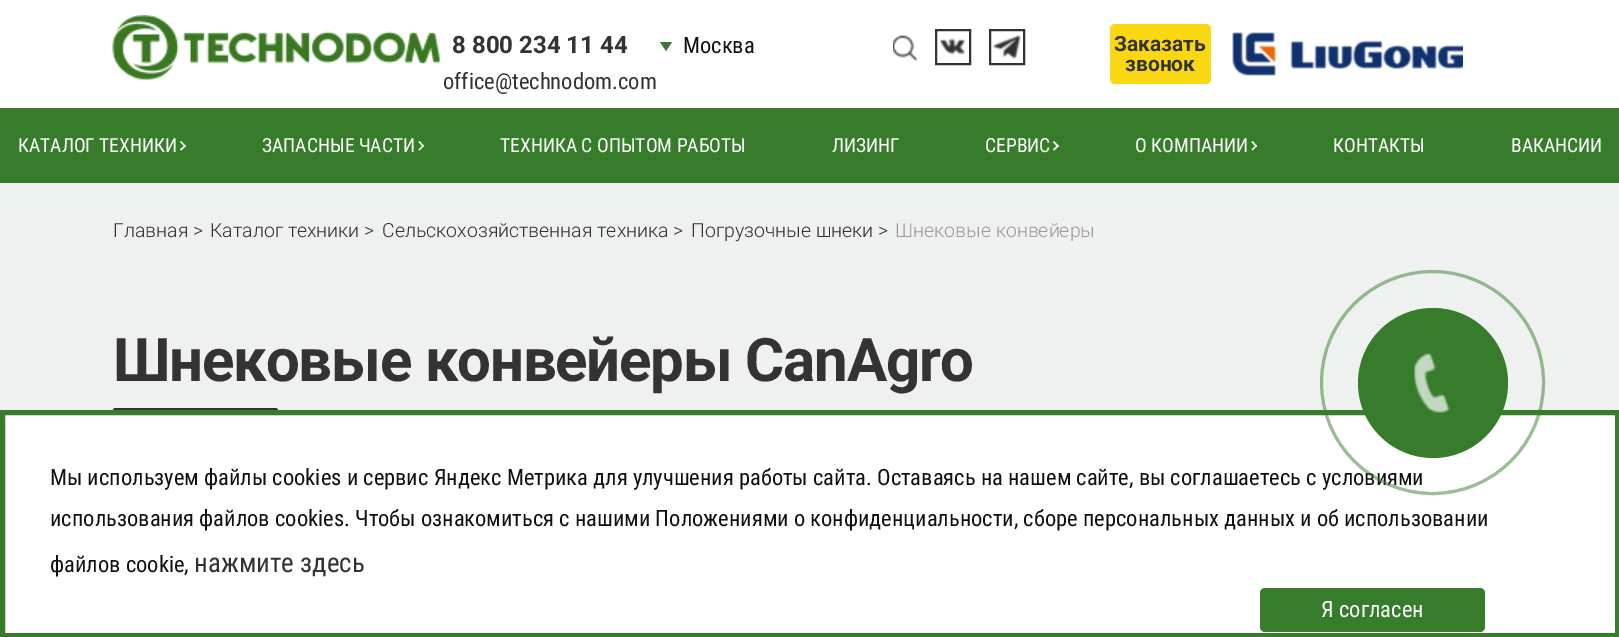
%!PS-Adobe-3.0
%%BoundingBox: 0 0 1619 637
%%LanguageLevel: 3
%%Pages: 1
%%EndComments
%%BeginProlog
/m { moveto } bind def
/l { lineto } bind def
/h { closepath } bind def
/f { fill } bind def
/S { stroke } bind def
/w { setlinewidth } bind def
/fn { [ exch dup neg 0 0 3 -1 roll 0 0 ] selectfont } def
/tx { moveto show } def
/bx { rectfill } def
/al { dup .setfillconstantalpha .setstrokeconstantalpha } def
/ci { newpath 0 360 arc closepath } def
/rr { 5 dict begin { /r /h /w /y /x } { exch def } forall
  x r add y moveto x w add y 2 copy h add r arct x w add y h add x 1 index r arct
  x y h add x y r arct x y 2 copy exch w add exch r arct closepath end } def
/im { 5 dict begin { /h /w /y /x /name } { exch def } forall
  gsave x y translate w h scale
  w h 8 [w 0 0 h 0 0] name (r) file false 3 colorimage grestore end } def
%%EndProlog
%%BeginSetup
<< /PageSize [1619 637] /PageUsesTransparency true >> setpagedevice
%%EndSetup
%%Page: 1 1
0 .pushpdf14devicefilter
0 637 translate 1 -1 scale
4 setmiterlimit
1 setgray
0 0 1619 637 bx
(image0.raw) 112 15 329 65 im
/Roboto-Bold 24 fn
0.2 setgray
(8 800 234 11 44) 452 53 tx
/RobotoCondensed-Regular 22.5 fn
(office@technodom.com) 443 89 tx
0.212 0.486 0.169 setrgbcolor
660 42 m 672 42 l 666 51 l h f
0.067 setgray
(Москва) 683 53 tx
(image1.raw) 893 35 25 26 im
0.2 setgray
2 w
936 30 34 34 rectstroke
(image2.raw) 940 38 25 17 im
990 30 34 34 rectstroke
(image3.raw) 992 35 29 25 im
0.976 0.847 0.075 setrgbcolor
1110 24 101 60 5 rr f
/Roboto-Bold 21 fn
0.2 setgray
(Заказать) 1114 51 tx
(звонок) 1125 71 tx
(image4.raw) 1232 32 231 44 im
0.212 0.486 0.169 setrgbcolor
0 108 1619 75 bx
/RobotoCondensed-Regular 19.5 fn
1 setgray
(КАТАЛОГ ТЕХНИКИ) 18 152 tx
185 147 m 180 142 l 181 141 l 186 146 l h f
181 150.5 m 180 149.5 l 185 145 l 186 146 l h f
(ЗАПАСНЫЕ ЧАСТИ) 262 152 tx
423 147 m 418.5 142 l 419.5 141 l 424 146 l h f
419.5 150.5 m 418.5 149.5 l 423 145 l 424 146 l h f
(ТЕХНИКА С ОПЫТОМ РАБОТЫ) 500 152 tx
(ЛИЗИНГ) 832 152 tx
(СЕРВИС) 985 152 tx
1057.5 147 m 1053 142 l 1054 141 l 1059 146 l h f
1054 150.5 m 1053 149.5 l 1057.5 145 l 1059 146 l h f
(О КОМПАНИИ) 1135 152 tx
1256 147 m 1251.5 142 l 1252.5 141 l 1257 146 l h f
1252.5 150.5 m 1251.5 149.5 l 1256 145 l 1257 146 l h f
(КОНТАКТЫ) 1333 152 tx
(ВАКАНСИИ) 1511 152 tx
0.937 0.941 0.941 setrgbcolor
0 183 1619 227 bx
/Roboto-Light 19.5 fn
0.2 setgray
(Главная >) 113 237 tx
(Каталог техники >) 210 237 tx
(Сельскохозяйственная техника >) 382 237 tx
(Погрузочные шнеки >) 691 237 tx
0.604 0.604 0.608 setrgbcolor
(Шнековые конвейеры) 895 237 tx
/Roboto-Bold 60 fn
0.2 setgray
113 381 m -1.2 0 (Шнековые конвейеры CanAgro) ashow
113 408 165 5 2.5 rr f
0.212 0.486 0.169 setrgbcolor
5 w
2.5 412.5 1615 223 rectstroke
/RobotoCondensed-Regular 22.5 fn
0.067 setgray
(Мы используем файлы cookies и сервис Яндекс Метрика для улучшения работы сайта. Оставаясь на нашем сайте, вы соглашаетесь с условиями) 50 485 tx
0.5 al
0.212 0.486 0.169 setrgbcolor
3 w
1432.5 382.5 111 ci S
1 al
1433 383 75 ci f
(image5.raw) 1414 353 36 60 im
0.067 setgray
(использования файлов cookies. Чтобы ознакомиться с нашими Положениями о конфиденциальности, сборе персональных данных и об использовании) 50 526 tx
(файлов cookie,) 50 572 tx
/RobotoCondensed-Regular 27 fn
0.2 setgray
(нажмите здесь) 194 572 tx
0.212 0.486 0.169 setrgbcolor
1260 588 225 44 5 rr f
/RobotoCondensed-Regular 22.5 fn
1 setgray
(Я согласен) 1321 617 tx
.poppdf14devicefilter showpage
%%EOF
